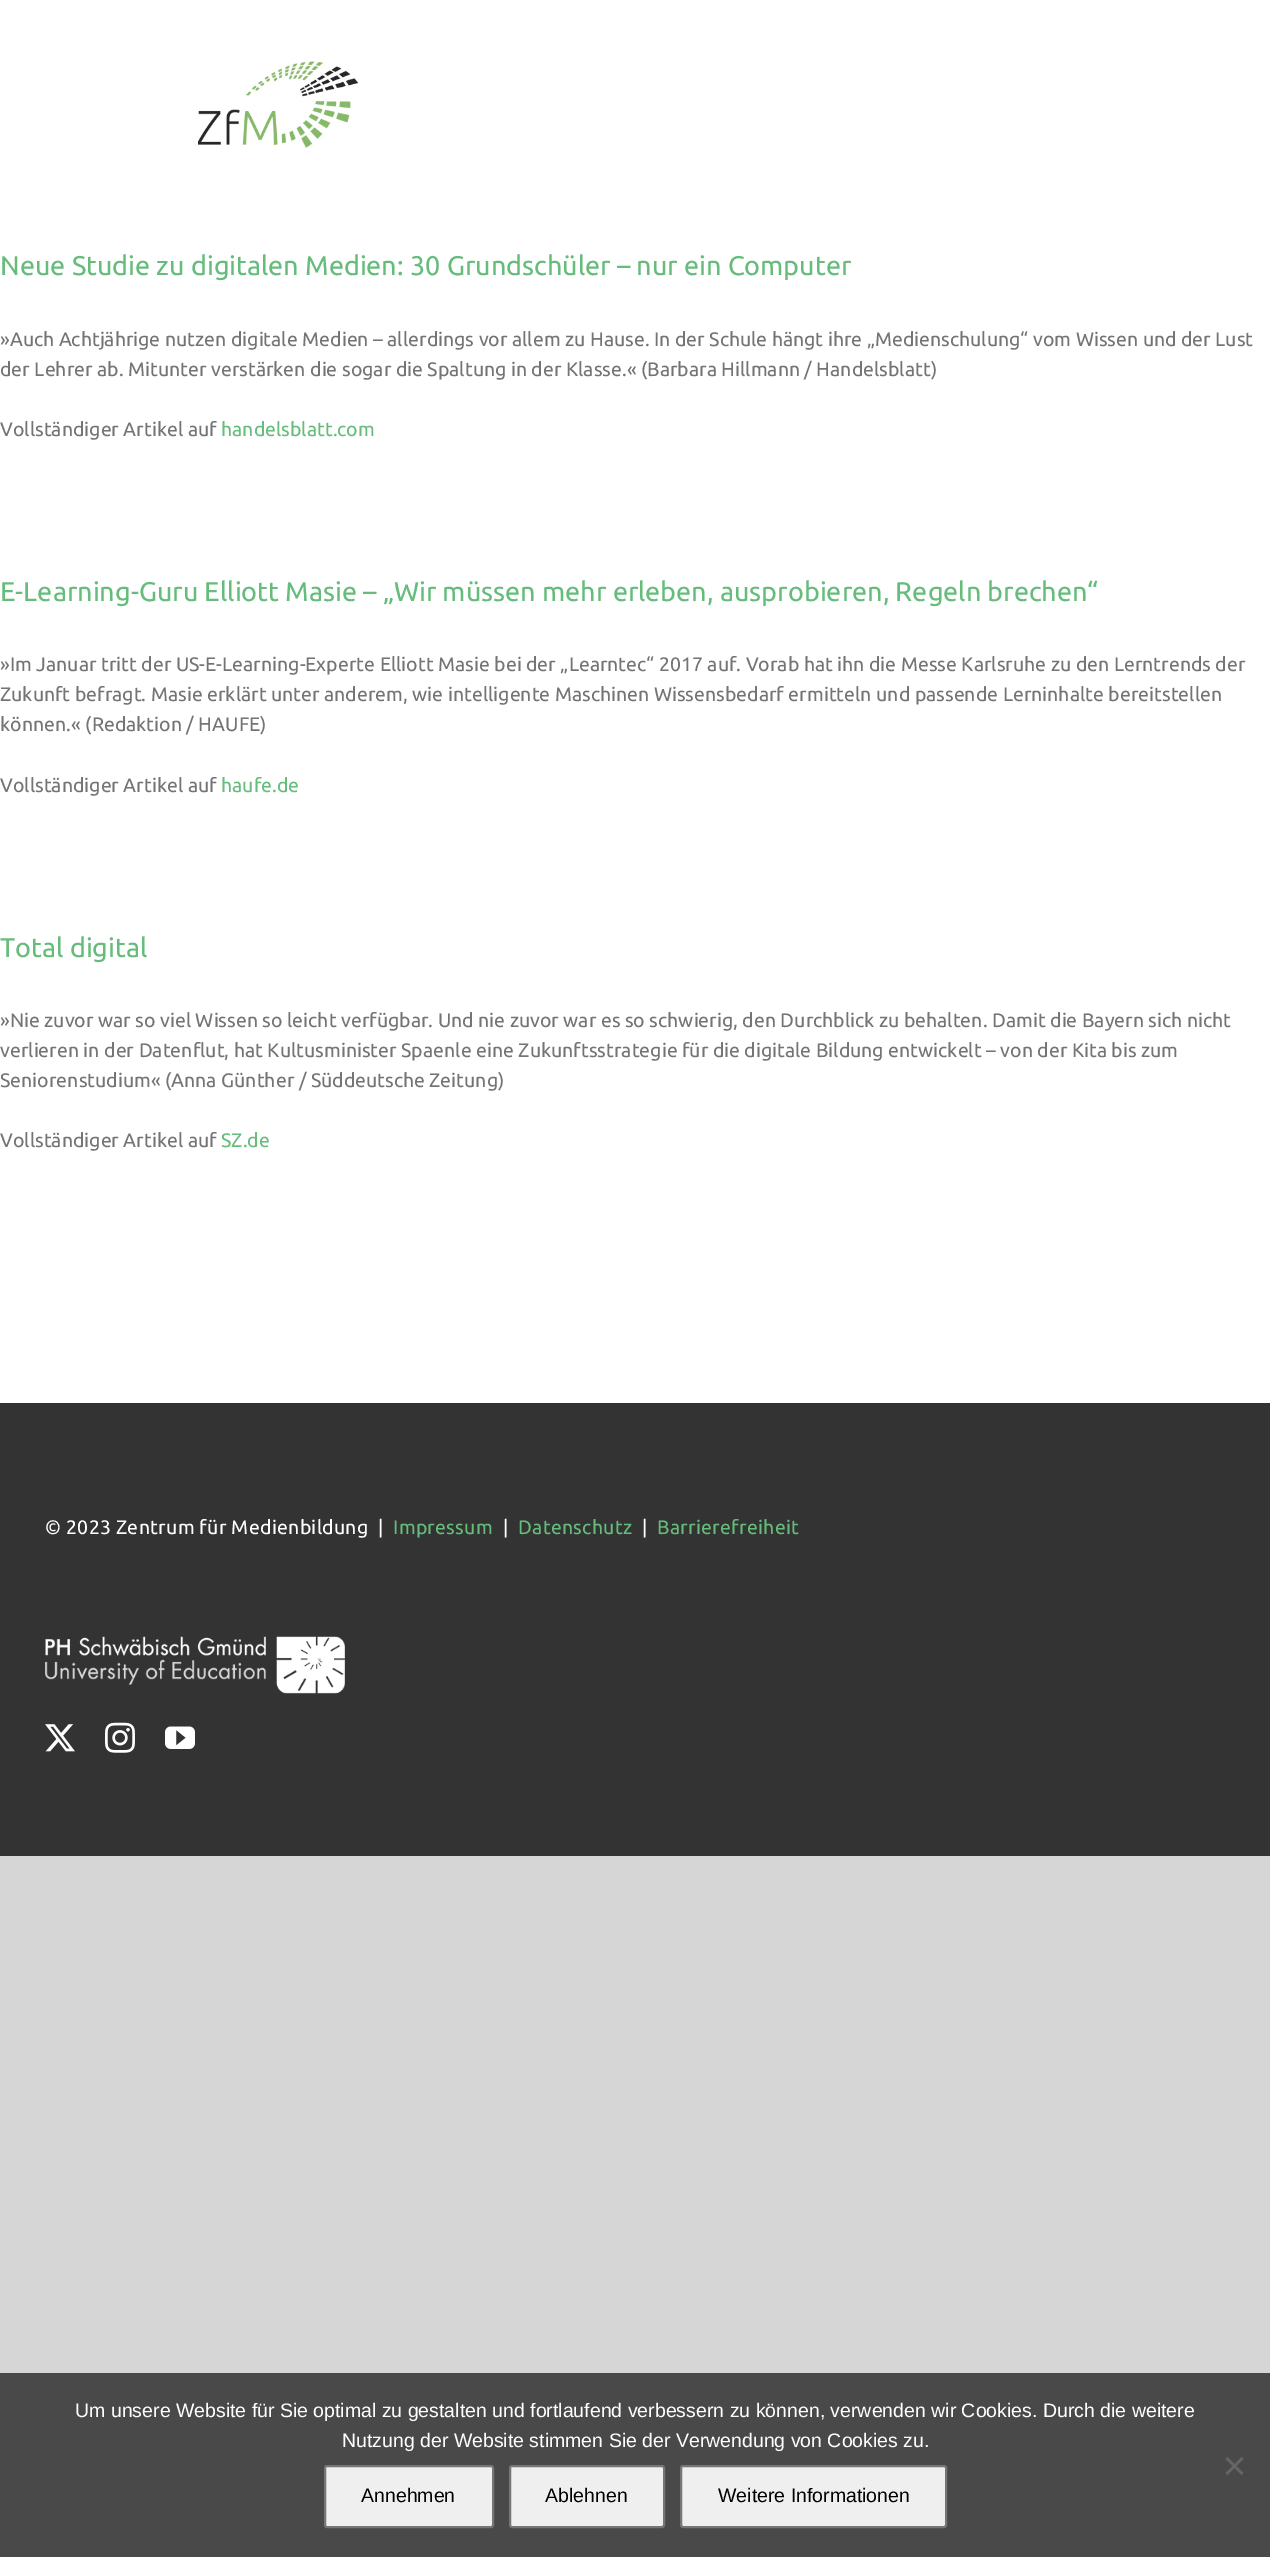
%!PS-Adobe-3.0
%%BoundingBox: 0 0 1270 2557
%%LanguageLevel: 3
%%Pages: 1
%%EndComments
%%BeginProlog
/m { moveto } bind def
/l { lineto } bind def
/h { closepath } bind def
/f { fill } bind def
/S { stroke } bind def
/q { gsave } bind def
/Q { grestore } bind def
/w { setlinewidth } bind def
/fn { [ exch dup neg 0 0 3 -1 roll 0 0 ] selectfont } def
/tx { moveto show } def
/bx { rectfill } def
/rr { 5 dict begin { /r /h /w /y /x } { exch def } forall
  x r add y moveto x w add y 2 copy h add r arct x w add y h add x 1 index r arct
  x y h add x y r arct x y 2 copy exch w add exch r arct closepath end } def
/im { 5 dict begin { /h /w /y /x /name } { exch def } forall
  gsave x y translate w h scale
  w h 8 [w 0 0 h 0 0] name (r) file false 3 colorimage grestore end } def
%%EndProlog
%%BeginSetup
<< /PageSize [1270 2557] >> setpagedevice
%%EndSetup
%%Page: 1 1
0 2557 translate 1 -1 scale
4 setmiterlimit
0.839 setgray
0 0 1270 2557 bx
1 setgray
0 0 1270 1403 bx
(image0.raw) 198 61 160 87 im
/Ubuntu-Regular 27 fn
0.396 0.737 0.482 setrgbcolor
(Neue Studie zu digitalen Medien: 30 Grundschüler – nur ein Computer) 0 275 tx
/Ubuntu-Regular 19.5 fn
0.455 setgray
(»Auch Achtjährige nutzen digitale Medien – allerdings vor allem zu Hause. In der Schule hängt ihre „Medienschulung“ vom Wissen und der Lust) 0 346 tx
(der Lehrer ab. Mitunter verstärken die sogar die Spaltung in der Klasse.« \(Barbara Hillmann / Handelsblatt\)) 0 376 tx
(Vollständiger Artikel auf) 0 436 tx
0.396 0.737 0.482 setrgbcolor
(handelsblatt.com) 221 436 tx
/Ubuntu-Regular 27 fn
(E-Learning-Guru Elliott Masie – „Wir müssen mehr erleben, ausprobieren, Regeln brechen“) 0 601 tx
/Ubuntu-Regular 19.5 fn
0.455 setgray
(»Im Januar tritt der US-E-Learning-Experte Elliott Masie bei der „Learntec“ 2017 auf. Vorab hat ihn die Messe Karlsruhe zu den Lerntrends der) 0 671 tx
(Zukunft befragt. Masie erklärt unter anderem, wie intelligente Maschinen Wissensbedarf ermitteln und passende Lerninhalte bereitstellen) 0 701 tx
(können.« \(Redaktion / HAUFE\)) 0 731 tx
(Vollständiger Artikel auf) 0 792 tx
0.396 0.737 0.482 setrgbcolor
(haufe.de) 221 792 tx
/Ubuntu-Regular 27 fn
(Total digital) 0 957 tx
/Ubuntu-Regular 19.5 fn
0.455 setgray
(»Nie zuvor war so viel Wissen so leicht verfügbar. Und nie zuvor war es so schwierig, den Durchblick zu behalten. Damit die Bayern sich nicht) 0 1027 tx
(verlieren in der Datenflut, hat Kultusminister Spaenle eine Zukunftsstrategie für die digitale Bildung entwickelt – von der Kita bis zum) 0 1057 tx
(Seniorenstudium« \(Anna Günther / Süddeutsche Zeitung\)) 0 1087 tx
(Vollständiger Artikel auf) 0 1147 tx
0.396 0.737 0.482 setrgbcolor
(SZ.de) 221 1147 tx
0.2 setgray
0 1403 1270 453 bx
1 setgray
45 1534 m 0.3 0 (© 2023 Zentrum für Medienbildung  |) ashow
0.396 0.737 0.482 setrgbcolor
393 1534 m 0.3 0 (Impressum) ashow
1 setgray
503 1534 m 0.3 0 (|) ashow
0.396 0.737 0.482 setrgbcolor
518 1534 m 0.3 0 (Datenschutz) ashow
1 setgray
642 1534 m 0.3 0 (|) ashow
0.396 0.737 0.482 setrgbcolor
657 1534 m 0.3 0 (Barrierefreiheit) ashow
(image1.raw) 45 1636 300 58 im
(image2.raw) 45 1724 30 28 im
(image3.raw) 105 1722 30 31 im
(image4.raw) 165 1726 30 23 im
0.286 setgray
0 2373 1270 184 bx
/LiberationSans-Regular 19.5 fn
1 setgray
(Um unsere Website für Sie optimal zu gestalten und fortlaufend verbessern zu können, verwenden wir Cookies. Durch die weitere) 75 2417 tx
(Nutzung der Website stimmen Sie der Verwendung von Cookies zu.) 342 2447 tx
0.396 setgray
1241.5 2457 m 1243.5 2459 l 1227.5 2475 l 1225.5 2473 l h f
1225.5 2459 m 1227.5 2457 l 1243.5 2473 l 1241.5 2475 l h f
0.937 setgray
325 2466 168 61 2 rr q f Q
0.463 setgray
2 w
S
0 setgray
(Annehmen) 361 2502 tx
0.937 setgray
510 2466 154 61 2 rr q f Q
0.463 setgray
S
0 setgray
(Ablehnen) 545 2502 tx
0.937 setgray
681 2466 265 61 2 rr q f Q
0.463 setgray
S
0 setgray
(Weitere Informationen) 718 2502 tx
showpage
%%EOF
